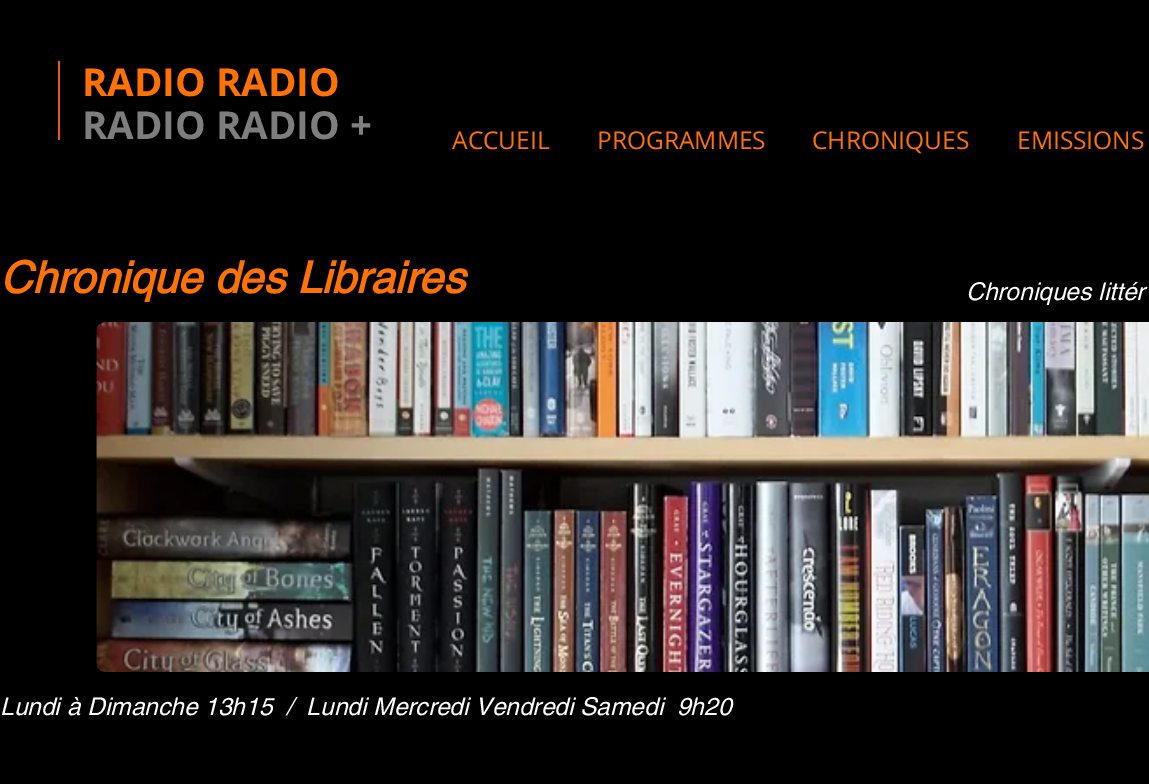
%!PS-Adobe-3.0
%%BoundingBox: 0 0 1149 784
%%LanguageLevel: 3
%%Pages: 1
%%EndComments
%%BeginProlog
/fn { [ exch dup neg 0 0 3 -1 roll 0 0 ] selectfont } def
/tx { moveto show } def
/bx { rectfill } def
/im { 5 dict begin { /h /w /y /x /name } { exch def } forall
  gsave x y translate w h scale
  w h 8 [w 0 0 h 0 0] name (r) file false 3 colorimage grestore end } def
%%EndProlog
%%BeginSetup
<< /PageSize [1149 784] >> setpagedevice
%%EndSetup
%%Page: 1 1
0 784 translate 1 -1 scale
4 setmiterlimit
0 setgray
0 0 1149 784 bx
0.933 0.349 0.067 setrgbcolor
58 61 2 79 bx
/OpenSans-Bold 38.5 fn
1 0.443 0 setrgbcolor
(RADIO RADIO) 82 96 tx
0.498 0.494 0.494 setrgbcolor
(RADIO RADIO +) 82 139 tx
/OpenSans-Regular 24.5 fn
1 0.443 0 setrgbcolor
(ACCUEIL) 452 149 tx
(PROGRAMMES) 597 149 tx
(CHRONIQUES) 812 149 tx
(EMISSIONS) 1017 149 tx
/helvetica-BoldItalic 43.75 fn
(Chronique des Libraires) 0 293 tx
/helvetica-Italic 24.5 fn
1 setgray
(Chroniques littér) 966 300 tx
(image0.raw) 96 322 1053 350 im
(Lundi à Dimanche 13h15  /  Lundi Mercredi Vendredi Samedi  9h20) 0 715 tx
showpage
%%EOF
